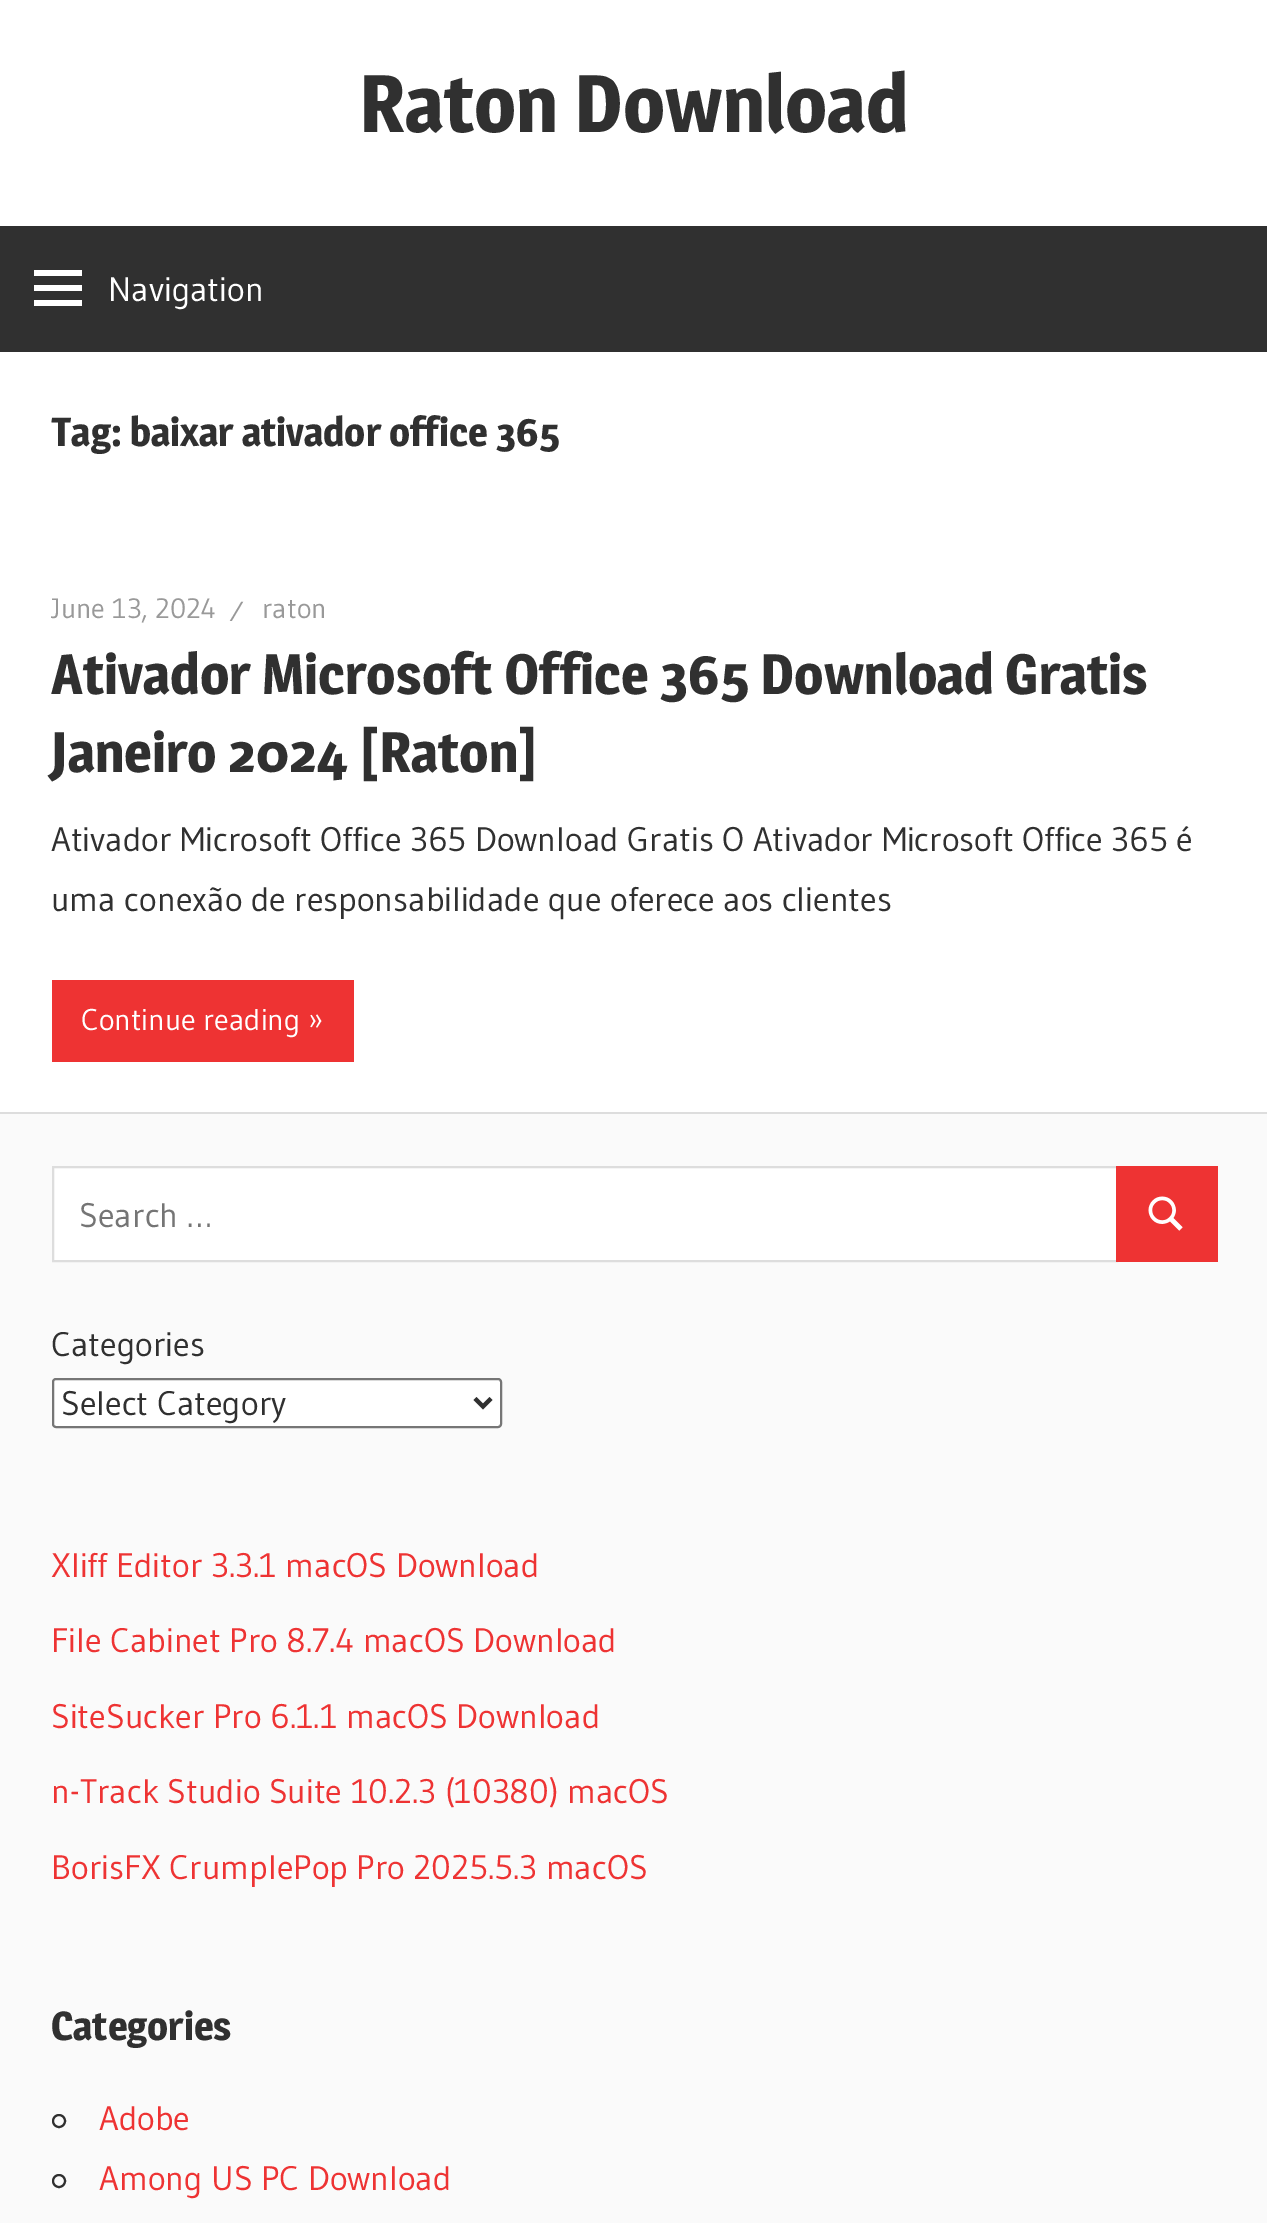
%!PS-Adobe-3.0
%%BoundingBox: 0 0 1267 2223
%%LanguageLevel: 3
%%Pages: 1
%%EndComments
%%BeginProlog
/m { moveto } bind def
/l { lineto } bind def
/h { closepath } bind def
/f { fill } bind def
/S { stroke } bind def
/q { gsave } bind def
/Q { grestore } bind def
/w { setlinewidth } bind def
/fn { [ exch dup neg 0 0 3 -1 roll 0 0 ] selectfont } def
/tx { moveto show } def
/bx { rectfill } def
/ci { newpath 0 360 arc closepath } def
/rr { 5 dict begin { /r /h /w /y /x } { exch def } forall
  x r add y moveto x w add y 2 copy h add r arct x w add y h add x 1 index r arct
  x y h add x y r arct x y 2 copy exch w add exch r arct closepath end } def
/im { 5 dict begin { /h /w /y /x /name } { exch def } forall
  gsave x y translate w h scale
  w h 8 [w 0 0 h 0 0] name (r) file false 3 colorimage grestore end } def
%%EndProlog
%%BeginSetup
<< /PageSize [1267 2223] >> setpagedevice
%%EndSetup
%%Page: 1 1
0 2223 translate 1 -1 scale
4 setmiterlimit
1 setgray
0 0 1267 2223 bx
/Magra-Bold 80 fn
0.188 setgray
(Raton Download) 359 132 tx
0 226 1267 126 bx
(image0.raw) 34 270 48 36 im
/Gudea-Regular 34 fn
1 setgray
(Navigation) 108 301 tx
/Magra-Bold 40 fn
0.188 setgray
(Tag: baixar ativador office 365) 51 446 tx
/Gudea-Regular 28 fn
0.6 setgray
(June 13, 2024) 51 618 tx
(⁄) 230 621 tx
(raton) 262 618 tx
/Magra-Bold 56 fn
0.188 setgray
(Ativador Microsoft Office 365 Download Gratis) 51 694 tx
(Janeiro 2024 [Raton]) 51 772 tx
/Gudea-Regular 34 fn
(Ativador Microsoft Office 365 Download Gratis O Ativador Microsoft Office 365 é) 51 851 tx
(uma conexão de responsabilidade que oferece aos clientes) 51 911 tx
0.933 0.2 0.2 setrgbcolor
52 980 302 82 bx
/Gudea-Regular 30 fn
1 setgray
(Continue reading ») 81 1030 tx
0.98 setgray
0 1114 1267 1109 bx
0.867 setgray
0 1112 1267 2 bx
1 setgray
53 1167 m 1117 1167 l 1117 1261 l 53 1261 l h q f Q
0.867 setgray
2 w
S
/Gudea-Regular 34 fn
0.459 setgray
(Search …) 79 1227 tx
0.933 0.2 0.2 setrgbcolor
1116 1166 102 96 bx
(image1.raw) 1148 1196 35 35 im
0.188 setgray
(Categories) 51 1356 tx
1 setgray
53 1379 448 48 3 rr q f Q
0.463 setgray
S
0.188 setgray
4 w
475 1398.5 m 483 1406.5 l 491 1398.5 l S
(Select Category) 61 1415 tx
0.933 0.2 0.2 setrgbcolor
(Xliff Editor 3.3.1 macOS Download) 51 1577 tx
(File Cabinet Pro 8.7.4 macOS Download) 51 1652 tx
(SiteSucker Pro 6.1.1 macOS Download) 51 1728 tx
(n-Track Studio Suite 10.2.3 \(10380\) macOS) 51 1803 tx
(BorisFX CrumplePop Pro 2025.5.3 macOS) 51 1879 tx
/Magra-Bold 40 fn
0.188 setgray
(Categories) 51 2040 tx
2 w
59 2121 6 ci S
/Gudea-Regular 34 fn
0.933 0.2 0.2 setrgbcolor
(Adobe) 99 2130 tx
0.188 setgray
59 2181 6 ci S
0.933 0.2 0.2 setrgbcolor
(Among US PC Download) 99 2190 tx
showpage
%%EOF
